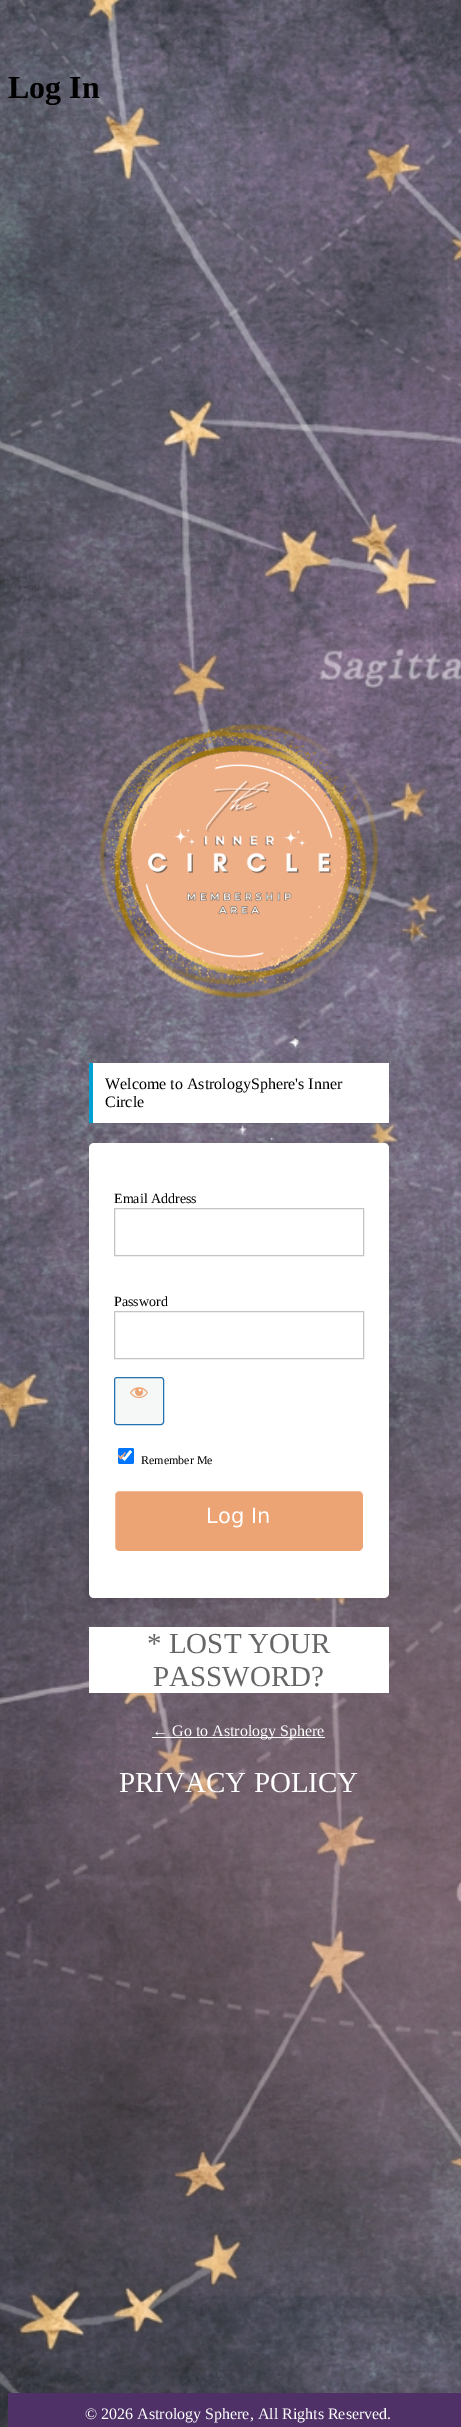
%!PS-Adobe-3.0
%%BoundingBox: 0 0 461 2427
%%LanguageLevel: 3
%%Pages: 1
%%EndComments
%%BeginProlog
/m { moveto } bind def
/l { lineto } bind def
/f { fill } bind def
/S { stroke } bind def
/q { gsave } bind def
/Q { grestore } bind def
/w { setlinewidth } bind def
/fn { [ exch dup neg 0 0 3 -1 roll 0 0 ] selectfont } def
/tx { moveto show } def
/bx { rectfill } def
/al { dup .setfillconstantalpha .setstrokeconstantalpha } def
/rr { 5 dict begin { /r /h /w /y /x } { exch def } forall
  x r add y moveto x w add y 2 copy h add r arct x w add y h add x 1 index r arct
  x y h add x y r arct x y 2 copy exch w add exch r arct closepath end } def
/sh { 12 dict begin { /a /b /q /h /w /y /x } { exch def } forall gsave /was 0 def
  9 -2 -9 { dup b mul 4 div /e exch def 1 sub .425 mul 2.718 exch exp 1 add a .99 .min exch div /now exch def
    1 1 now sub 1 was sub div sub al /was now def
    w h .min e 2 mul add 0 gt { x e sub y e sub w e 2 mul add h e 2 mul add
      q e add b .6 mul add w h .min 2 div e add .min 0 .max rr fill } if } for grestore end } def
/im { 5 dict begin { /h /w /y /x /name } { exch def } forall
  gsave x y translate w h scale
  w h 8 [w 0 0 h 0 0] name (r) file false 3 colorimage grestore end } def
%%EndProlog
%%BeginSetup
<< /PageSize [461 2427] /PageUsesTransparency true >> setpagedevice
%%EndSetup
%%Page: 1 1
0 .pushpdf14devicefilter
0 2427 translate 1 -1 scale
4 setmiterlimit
1 setgray
0 0 461 2427 bx
(image0.raw) 0 0 461 2427 im
/LiberationSerif-Bold 32 fn
0 setgray
(Log In) 8 98 tx
(image1.raw) 99 724 280 275 im
89 1064 300 60 0 0.5 0.1 sh
1 setgray
93 1063 296 60 bx
0 0.627 0.824 setrgbcolor
89 1063 4 60 bx
/LiberationSerif-Regular 16 fn
0 setgray
(Welcome to AstrologySphere's Inner) 105 1089 tx
(Circle) 105 1107 tx
89 1143 300 455 5 8.5 0.13 sh
1 setgray
89 1143 300 455 5 rr f
/LiberationSerif-Regular 14 fn
0 setgray
(Email Address) 114 1203 tx
0.765 0.769 0.78 setrgbcolor
114.5 1208.5 249 47 rectstroke
0 setgray
(Password) 114 1306 tx
0.765 0.769 0.78 setrgbcolor
114.5 1311.5 249 47 rectstroke
0.965 0.969 0.969 setrgbcolor
114.5 1377.5 49 47 2.5 rr q f Q
0.133 0.443 0.694 setrgbcolor
S
(image2.raw) 130 1387 18 12 im
0 0.459 1 setrgbcolor
118 1448 16 16 2 rr f
1 setgray
2.6 w
121 1456 m 124.5 1459 l 131 1451 l S
(image3.raw) 117 1452 9 8 im
/LiberationSerif-Regular 12 fn
0 setgray
(Remember Me) 141 1464 tx
0.929 0.643 0.455 setrgbcolor
114.5 1490.5 249 61 4.5 rr q f Q
1 setgray
1 w
S
/DejaVuSans-Regular 21 fn
(Log In) 206 1523 tx
89 1627 300 66 bx
/LiberationSerif-Regular 29 fn
0.4 setgray
(* LOST YOUR) 147 1653 tx
(PASSWORD?) 153 1686 tx
1 setgray
152 1737 173 1 bx
/LiberationSerif-Regular 16 fn
(← Go to Astrology Sphere) 152 1736 tx
/LiberationSerif-Regular 29 fn
(PRIVACY POLICY) 119 1792 tx
0.31 0.192 0.408 setrgbcolor
8 2393 453 34 bx
/LiberationSerif-Regular 16 fn
1 setgray
(© 2026 Astrology Sphere, All Rights Reserved.) 85 2419 tx
.poppdf14devicefilter showpage
%%EOF
